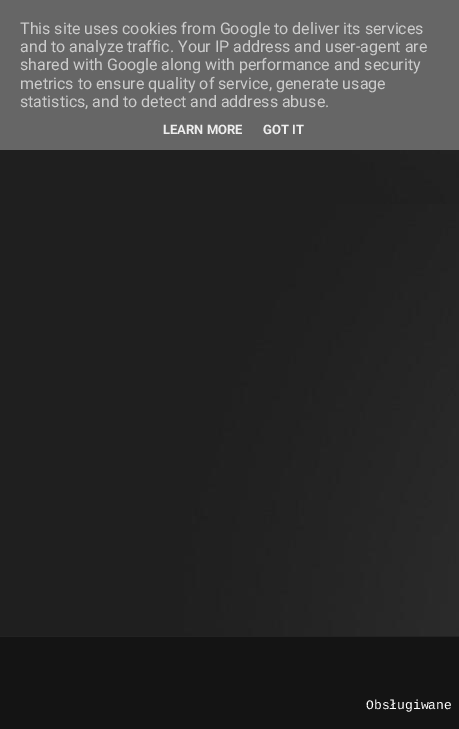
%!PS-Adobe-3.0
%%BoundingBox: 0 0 459 729
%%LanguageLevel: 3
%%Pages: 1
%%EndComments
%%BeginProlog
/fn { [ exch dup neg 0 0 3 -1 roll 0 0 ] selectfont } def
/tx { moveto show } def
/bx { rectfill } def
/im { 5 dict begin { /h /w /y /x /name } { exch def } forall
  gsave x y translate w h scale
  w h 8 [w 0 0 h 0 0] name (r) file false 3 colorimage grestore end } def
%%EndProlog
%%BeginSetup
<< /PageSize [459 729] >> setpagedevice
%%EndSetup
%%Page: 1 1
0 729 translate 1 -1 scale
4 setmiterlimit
1 setgray
0 0 459 729 bx
(image0.raw) 0 150 459 486 im
0.4 setgray
0 0 459 150 bx
/Roboto-Regular 16 fn
0.8 setgray
(This site uses cookies from Google to deliver its services) 20 34 tx
(and to analyze traffic. Your IP address and user-agent are) 20 52 tx
(shared with Google along with performance and security) 20 70 tx
(metrics to ensure quality of service, generate usage) 20 89 tx
(statistics, and to detect and address abuse.) 20 107 tx
/Roboto-Bold 13 fn
0.933 setgray
(LEARN MORE) 163 134 tx
(GOT IT) 263 134 tx
0.078 setgray
0 637 459 92 bx
0.133 setgray
0 636 459 1 bx
/LiberationMono-Regular 13 fn
1 setgray
(Obsługiwane) 366 709 tx
showpage
%%EOF
